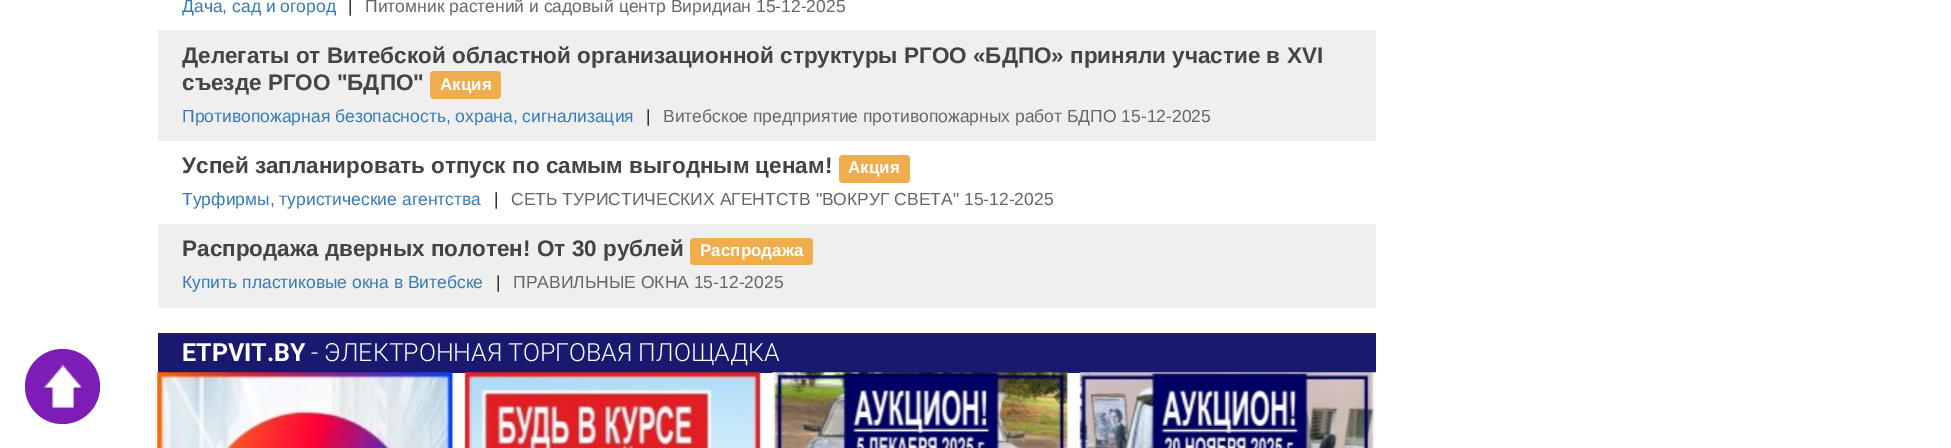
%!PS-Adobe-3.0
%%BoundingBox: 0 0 1951 448
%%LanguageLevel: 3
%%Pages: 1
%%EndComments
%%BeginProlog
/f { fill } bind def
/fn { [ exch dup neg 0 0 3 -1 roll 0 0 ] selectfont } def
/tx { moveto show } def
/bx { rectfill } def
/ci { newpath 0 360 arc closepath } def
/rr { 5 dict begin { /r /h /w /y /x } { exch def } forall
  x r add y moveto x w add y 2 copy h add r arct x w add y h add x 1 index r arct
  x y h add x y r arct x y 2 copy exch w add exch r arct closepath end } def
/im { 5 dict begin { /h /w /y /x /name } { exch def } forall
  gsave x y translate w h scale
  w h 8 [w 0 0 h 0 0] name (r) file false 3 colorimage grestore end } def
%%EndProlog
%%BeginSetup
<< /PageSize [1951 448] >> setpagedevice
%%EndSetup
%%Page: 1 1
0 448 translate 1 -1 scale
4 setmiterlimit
1 setgray
0 0 1951 448 bx
/LiberationSans-Regular 17.5 fn
0.2 0.478 0.718 setrgbcolor
(Дача, сад и огород) 182 12 tx
0.2 setgray
(|) 348 12 tx
0.4 setgray
(Питомник растений и садовый центр Виридиан 15-12-2025) 365 12 tx
0.937 setgray
158 30 1218 111 bx
/LiberationSans-Bold 22.5 fn
0.267 setgray
(Делегаты от Витебской областной организационной структуры РГОО «БДПО» приняли участие в XVI) 182 63 tx
(съезде РГОО "БДПО") 182 90 tx
0.941 0.678 0.306 setrgbcolor
430 71 71 28 4 rr f
/LiberationSans-Bold 17 fn
1 setgray
(Акция) 440 90 tx
/LiberationSans-Regular 17.5 fn
0.2 0.478 0.718 setrgbcolor
(Противопожарная безопасность, охрана, сигнализация) 182 122 tx
0.2 setgray
(|) 646 122 tx
0.4 setgray
(Витебское предприятие противопожарных работ БДПО 15-12-2025) 663 122 tx
/LiberationSans-Bold 22.5 fn
0.267 setgray
(Успей запланировать отпуск по самым выгодным ценам!) 182 173 tx
0.941 0.678 0.306 setrgbcolor
839 155 71 28 4 rr f
/LiberationSans-Bold 17 fn
1 setgray
(Акция) 848 173 tx
/LiberationSans-Regular 17.5 fn
0.2 0.478 0.718 setrgbcolor
(Турфирмы, туристические агентства) 182 205 tx
0.2 setgray
(|) 494 205 tx
0.4 setgray
(СЕТЬ ТУРИСТИЧЕСКИХ АГЕНТСТВ "ВОКРУГ СВЕТА" 15-12-2025) 511 205 tx
0.937 setgray
158 224 1218 84 bx
/LiberationSans-Bold 22.5 fn
0.267 setgray
(Распродажа дверных полотен! От 30 рублей) 182 256 tx
0.941 0.678 0.306 setrgbcolor
690 238 123 27 4 rr f
/LiberationSans-Bold 17 fn
1 setgray
(Распродажа) 700 256 tx
/LiberationSans-Regular 17.5 fn
0.2 0.478 0.718 setrgbcolor
(Купить пластиковые окна в Витебске) 182 288 tx
0.2 setgray
(|) 496 288 tx
0.4 setgray
(ПРАВИЛЬНЫЕ ОКНА 15-12-2025) 513 288 tx
0.098 0.098 0.439 setrgbcolor
158 333 1218 40 bx
/Roboto-Bold 25 fn
1 setgray
(ETPVIT.BY) 182 361 tx
/Roboto-Light 25 fn
(- ЭЛЕКТРОННАЯ ТОРГОВАЯ ПЛОЩАДКА) 311 361 tx
(image0.raw) 157 372 297 76 im
(image1.raw) 464 372 297 76 im
(image2.raw) 772 372 297 76 im
(image3.raw) 1079 372 297 76 im
0.49 0.11 0.714 setrgbcolor
62.5 386.5 37.5 ci f
(image4.raw) 43 364 39 44 im
showpage
%%EOF
